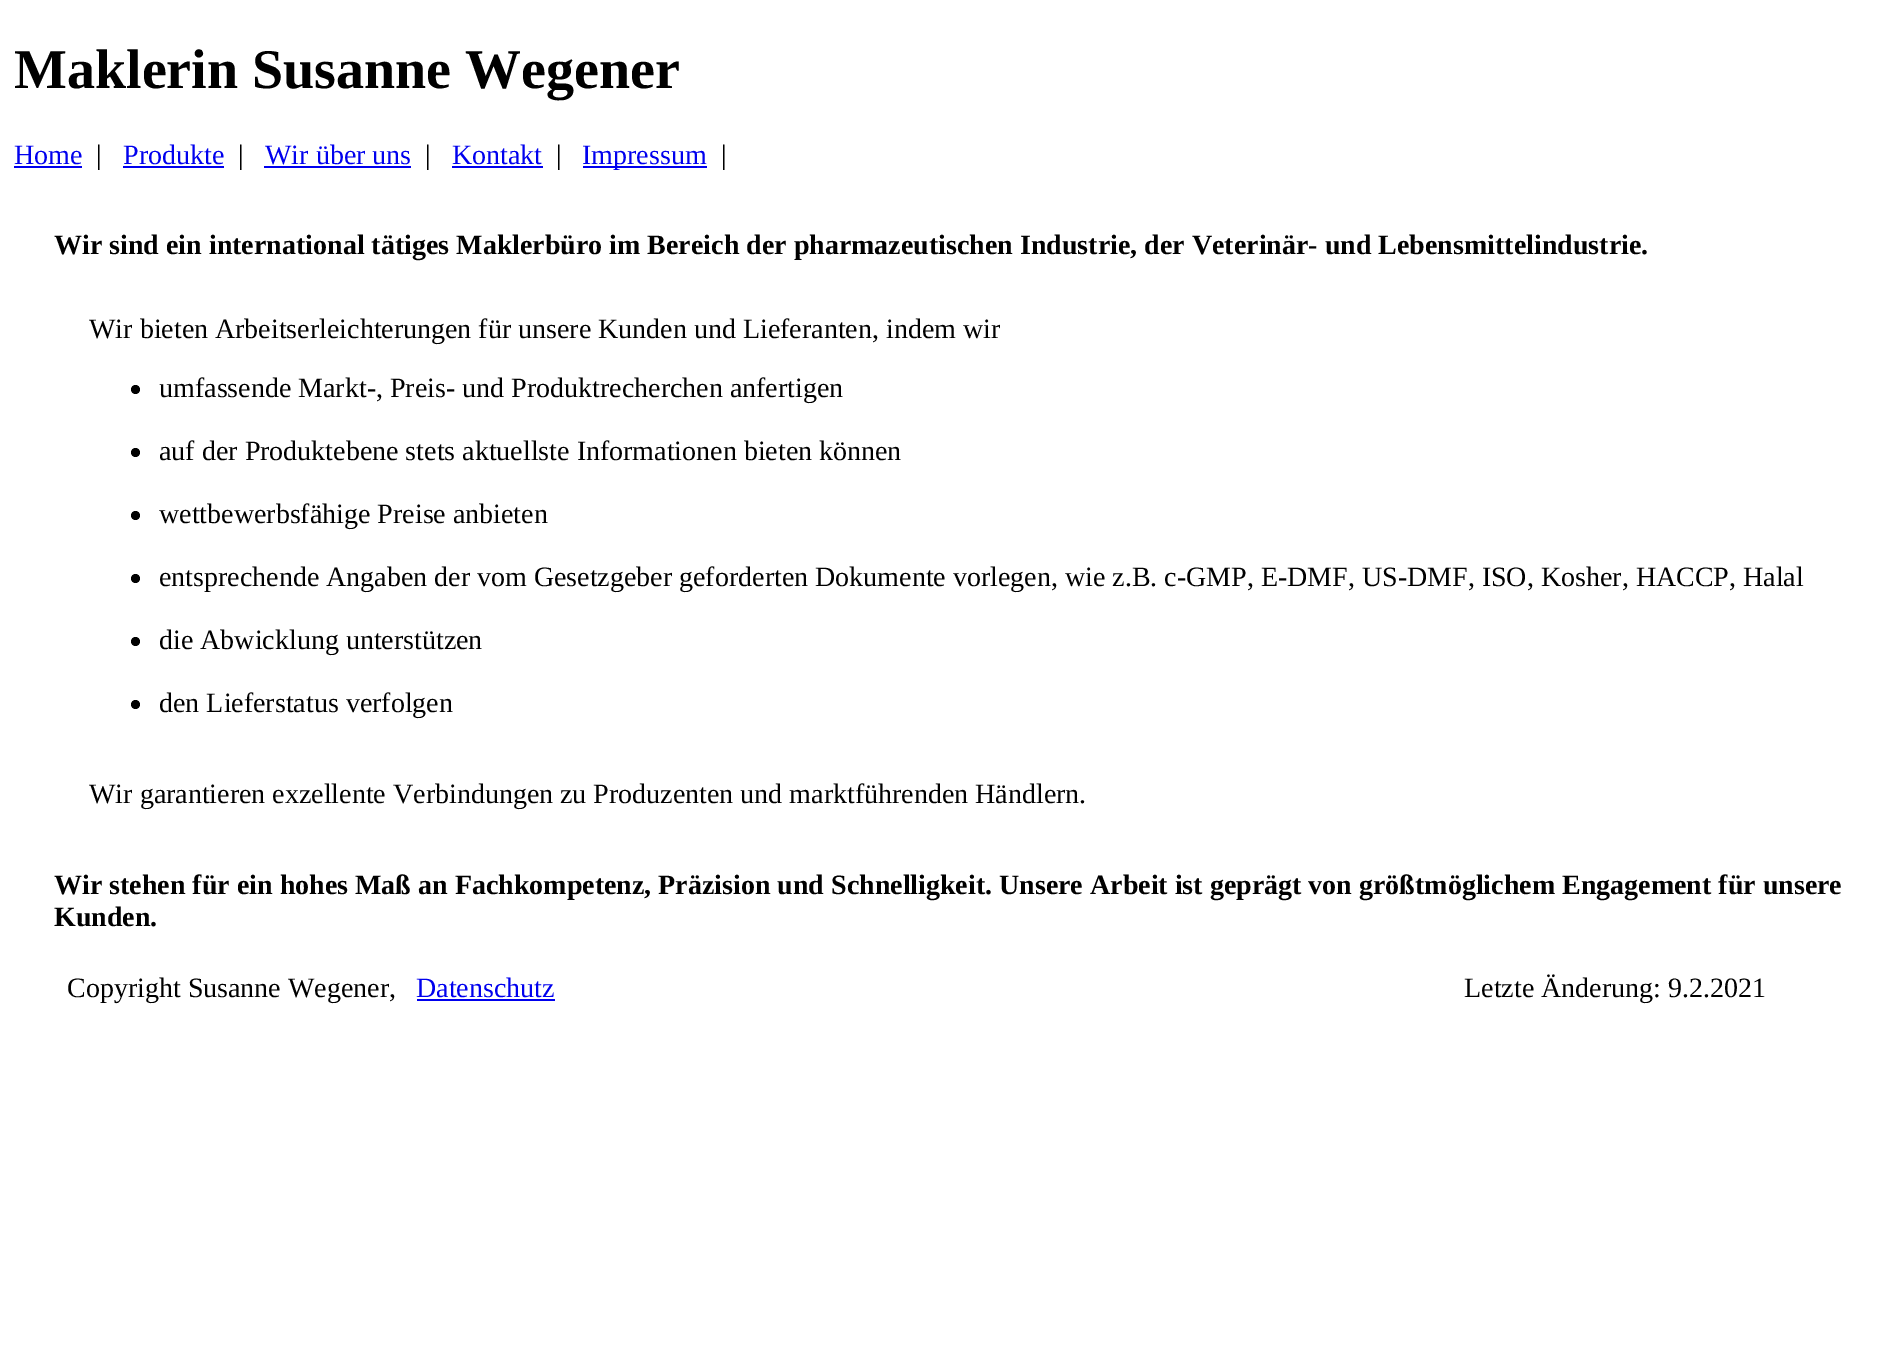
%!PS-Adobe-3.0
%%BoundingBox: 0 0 1884 1367
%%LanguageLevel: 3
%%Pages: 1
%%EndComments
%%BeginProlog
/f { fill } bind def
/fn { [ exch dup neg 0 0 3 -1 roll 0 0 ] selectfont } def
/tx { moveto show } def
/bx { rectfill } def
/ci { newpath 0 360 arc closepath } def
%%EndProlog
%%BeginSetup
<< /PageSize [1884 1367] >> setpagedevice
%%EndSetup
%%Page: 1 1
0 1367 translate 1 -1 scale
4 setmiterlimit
1 setgray
0 0 1884 1367 bx
/LiberationSerif-Bold 56 fn
0 setgray
(Maklerin Susanne Wegener) 14 88 tx
/LiberationSerif-Regular 28 fn
0 0 0.933 setrgbcolor
(Home) 14 164 tx
14 166 68 2 bx
0 setgray
(|) 96 164 tx
0 0 0.933 setrgbcolor
(Produkte) 123 164 tx
123 166 101 2 bx
0 setgray
(|) 238 164 tx
0 0 0.933 setrgbcolor
(Wir über uns) 265 164 tx
264 166 147 2 bx
0 setgray
(|) 425 164 tx
0 0 0.933 setrgbcolor
(Kontakt) 452 164 tx
452 166 91 2 bx
0 setgray
(|) 556 164 tx
0 0 0.933 setrgbcolor
583 166 124 2 bx
(Impressum) 582 164 tx
0 setgray
(|) 721 164 tx
/LiberationSerif-Bold 28 fn
(Wir sind ein international tätiges Maklerbüro im Bereich der pharmazeutischen Industrie, der Veterinär- und Lebensmittelindustrie.) 54 254 tx
/LiberationSerif-Regular 28 fn
(Wir bieten Arbeitserleichterungen für unsere Kunden und Lieferanten, indem wir) 89 338 tx
135.5 389.5 4.5 ci f
(umfassende Markt-, Preis- und Produktrecherchen anfertigen) 159 397 tx
135.5 452.5 4.5 ci f
(auf der Produktebene stets aktuellste Informationen bieten können) 159 460 tx
135.5 515.5 4.5 ci f
(wettbewerbsfähige Preise anbieten) 159 523 tx
135.5 578.5 4.5 ci f
(entsprechende Angaben der vom Gesetzgeber geforderten Dokumente vorlegen, wie z.B. c-GMP, E-DMF, US-DMF, ISO, Kosher, HACCP, Halal) 159 586 tx
135.5 641.5 4.5 ci f
(die Abwicklung unterstützen) 159 649 tx
135.5 704.5 4.5 ci f
(den Lieferstatus verfolgen) 159 712 tx
(Wir garantieren exzellente Verbindungen zu Produzenten und marktführenden Händlern.) 89 803 tx
/LiberationSerif-Bold 28 fn
(Wir stehen für ein hohes Maß an Fachkompetenz, Präzision und Schnelligkeit. Unsere Arbeit ist geprägt von größtmöglichem Engagement für unsere) 54 894 tx
(Kunden.) 54 926 tx
/LiberationSerif-Regular 28 fn
(Copyright Susanne Wegener,) 67 997 tx
0 0 0.933 setrgbcolor
(Datenschutz) 416 997 tx
417 999 138 2 bx
0 setgray
(Letzte Änderung: 9.2.2021) 1464 997 tx
showpage
%%EOF
